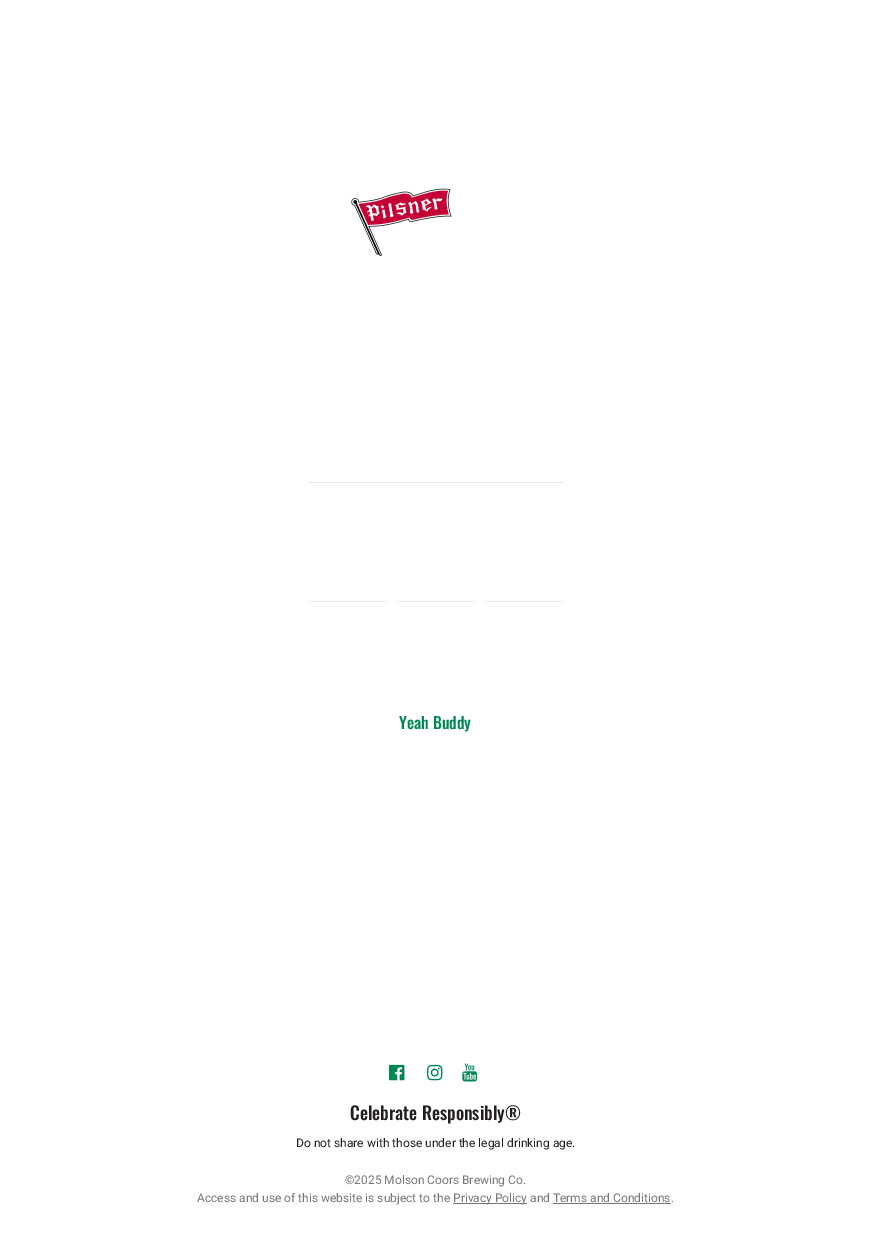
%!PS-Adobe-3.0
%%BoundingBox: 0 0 871 1234
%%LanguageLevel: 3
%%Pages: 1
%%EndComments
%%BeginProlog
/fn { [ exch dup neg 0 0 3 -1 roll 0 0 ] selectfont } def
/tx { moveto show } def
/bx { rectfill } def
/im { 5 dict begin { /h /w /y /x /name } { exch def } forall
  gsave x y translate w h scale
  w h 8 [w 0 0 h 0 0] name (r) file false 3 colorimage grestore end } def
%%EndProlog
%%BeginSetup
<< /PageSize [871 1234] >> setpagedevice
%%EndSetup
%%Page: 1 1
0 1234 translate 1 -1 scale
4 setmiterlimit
1 setgray
0 0 871 1234 bx
(image0.raw) 351 188 101 68 im
0.925 setgray
307 482 258 1 bx
309 601 78 1 bx
397 601 78 1 bx
485 601 78 1 bx
/Oswald-Medium 16 fn
0 0.529 0.322 setrgbcolor
(Yeah Buddy) 399 729 tx
(image1.raw) 389 1064 16 17 im
(image2.raw) 427 1064 16 17 im
(image3.raw) 462 1063 16 19 im
/Oswald-Medium 18 fn
0.137 0.122 0.125 setrgbcolor
(Celebrate Responsibly®) 350 1120 tx
/Roboto-Regular 12 fn
(Do not share with those under the legal drinking age.) 296 1147 tx
0.463 setgray
(©2025 Molson Coors Brewing Co.) 345 1184 tx
(Access and use of this website is subject to the) 197 1202 tx
453 1203 74 1 bx
(Privacy Policy and Terms and Conditions.) 453 1202 tx
553 1203 118 1 bx
showpage
%%EOF
